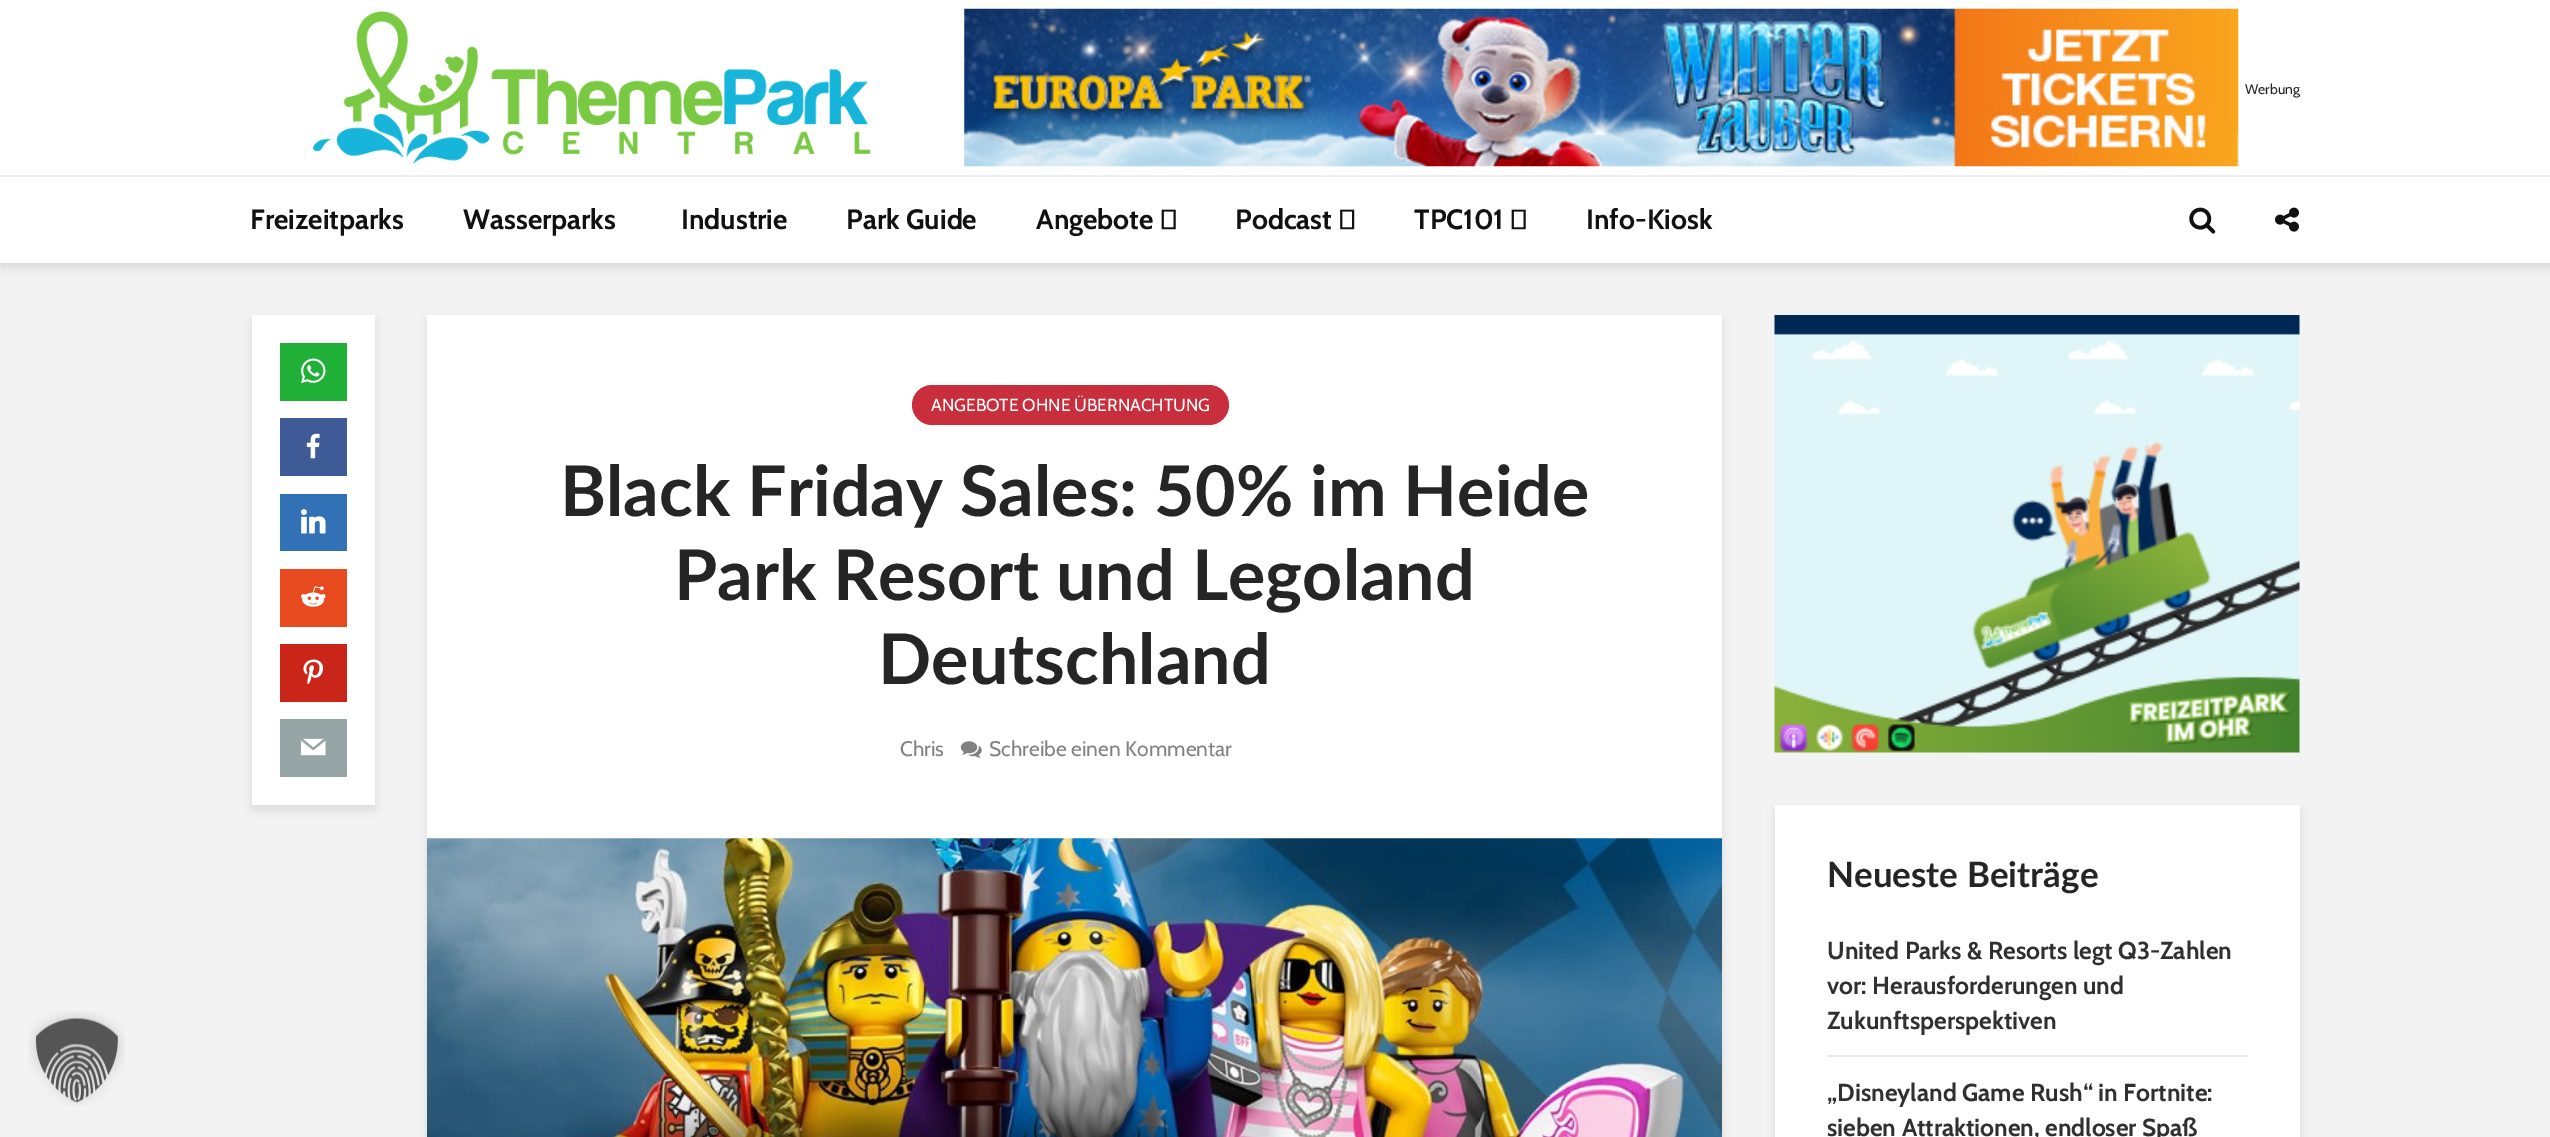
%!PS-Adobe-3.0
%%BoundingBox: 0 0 2550 1137
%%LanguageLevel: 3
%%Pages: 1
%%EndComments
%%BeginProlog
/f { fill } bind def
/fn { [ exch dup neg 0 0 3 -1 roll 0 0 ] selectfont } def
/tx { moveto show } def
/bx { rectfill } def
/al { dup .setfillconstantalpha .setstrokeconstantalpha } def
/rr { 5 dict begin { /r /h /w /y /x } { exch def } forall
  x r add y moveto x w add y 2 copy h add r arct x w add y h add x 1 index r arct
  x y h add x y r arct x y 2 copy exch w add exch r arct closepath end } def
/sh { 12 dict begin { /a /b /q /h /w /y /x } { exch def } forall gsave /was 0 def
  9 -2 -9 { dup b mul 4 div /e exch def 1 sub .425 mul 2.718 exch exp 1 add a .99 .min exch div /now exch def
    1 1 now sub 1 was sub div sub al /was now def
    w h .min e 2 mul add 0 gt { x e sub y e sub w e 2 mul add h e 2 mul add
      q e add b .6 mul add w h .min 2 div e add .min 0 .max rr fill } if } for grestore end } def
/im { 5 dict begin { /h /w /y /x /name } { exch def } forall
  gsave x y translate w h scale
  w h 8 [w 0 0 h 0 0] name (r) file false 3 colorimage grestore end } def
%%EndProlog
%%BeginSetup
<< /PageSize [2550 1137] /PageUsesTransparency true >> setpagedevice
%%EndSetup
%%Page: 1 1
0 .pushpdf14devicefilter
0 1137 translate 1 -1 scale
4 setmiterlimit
0.953 setgray
0 0 2550 1137 bx
0 0.004 0.004 setrgbcolor
0 5 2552 263 0 4.5 0.1 sh
1 setgray
0 0 2550 175 bx
(image0.raw) 313 11 557 153 im
(image1.raw) 964 8 1275 159 im
/Cabin-Regular 14 fn
0.145 setgray
(Werbung) 2245 94 tx
1 setgray
0 177 2550 86 bx
0.933 setgray
0 175 2550 2 bx
/Cabin-Bold 28 fn
0.067 setgray
(Freizeitparks) 250 229 tx
(Wasserparks) 463 229 tx
(Industrie) 681 229 tx
(Park Guide) 846 229 tx
(Angebote) 1036 229 tx
(image2.raw) 1161 209 15 21 im
(Podcast) 1235 229 tx
(image3.raw) 1340 209 15 21 im
(TPC101) 1414 229 tx
(image2.raw) 1511 209 15 21 im
(Info-Kiosk) 1586 229 tx
(image4.raw) 2189 207 27 27 im
(image5.raw) 2275 207 24 25 im
(image6.raw) 28 1011 97 95 im
0 0.004 0.004 setrgbcolor
252 320 123 490 0 4.5 0.1 sh
1 setgray
252 315 123 490 bx
0.125 0.69 0.22 setrgbcolor
280 343 67 58 bx
(image7.raw) 301 358 25 25 im
0.243 0.357 0.596 setrgbcolor
280 418 67 58 bx
(image8.raw) 306 433 14 26 im
0.2 0.443 0.718 setrgbcolor
280 494 67 57 bx
(image9.raw) 301 509 25 25 im
0.906 0.29 0.118 setrgbcolor
280 569 67 58 bx
(image10.raw) 301 586 25 21 im
0.788 0.149 0.098 setrgbcolor
280 644 67 58 bx
(image11.raw) 303 659 21 25 im
0.584 0.647 0.651 setrgbcolor
280 719 67 58 bx
(image12.raw) 301 738 25 18 im
0 0.004 0.004 setrgbcolor
427 320 1295 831 0 4.5 0.1 sh
1 setgray
427 315 1295 524 bx
0.788 0.18 0.239 setrgbcolor
912 385 317 40 20 rr f
/Cabin-Regular 17.5 fn
1 setgray
(ANGEBOTE OHNE ÜBERNACHTUNG) 931 411 tx
/Lato-Bold 70 fn
0.145 setgray
(Black Friday Sales: 50% im Heide) 560 516 tx
(Park Resort und Legoland) 674 600 tx
(Deutschland) 878 684 tx
/Cabin-Regular 21 fn
0.506 setgray
(Chris) 900 756 tx
(image13.raw) 960 741 22 17 im
(Schreibe einen Kommentar) 989 756 tx
(image14.raw) 427 838 1295 299 im
(image15.raw) 1774 315 526 438 im
0 0.004 0.004 setrgbcolor
1775 810 525 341 0 4.5 0.1 sh
1 setgray
1775 805 525 332 bx
/Lato-Bold 35 fn
0.145 setgray
(Neueste Beiträge) 1827 887 tx
0.918 setgray
1827 1055 420 2 bx
/Cabin-Bold 24.5 fn
0.188 setgray
(United Parks & Resorts legt Q3-Zahlen) 1827 959 tx
(vor: Herausforderungen und) 1827 994 tx
(Zukunftsperspektiven) 1827 1029 tx
(„Disneyland Game Rush“ in Fortnite:) 1827 1101 tx
(sieben Attraktionen, endloser Spaß) 1827 1136 tx
.poppdf14devicefilter showpage
%%EOF
